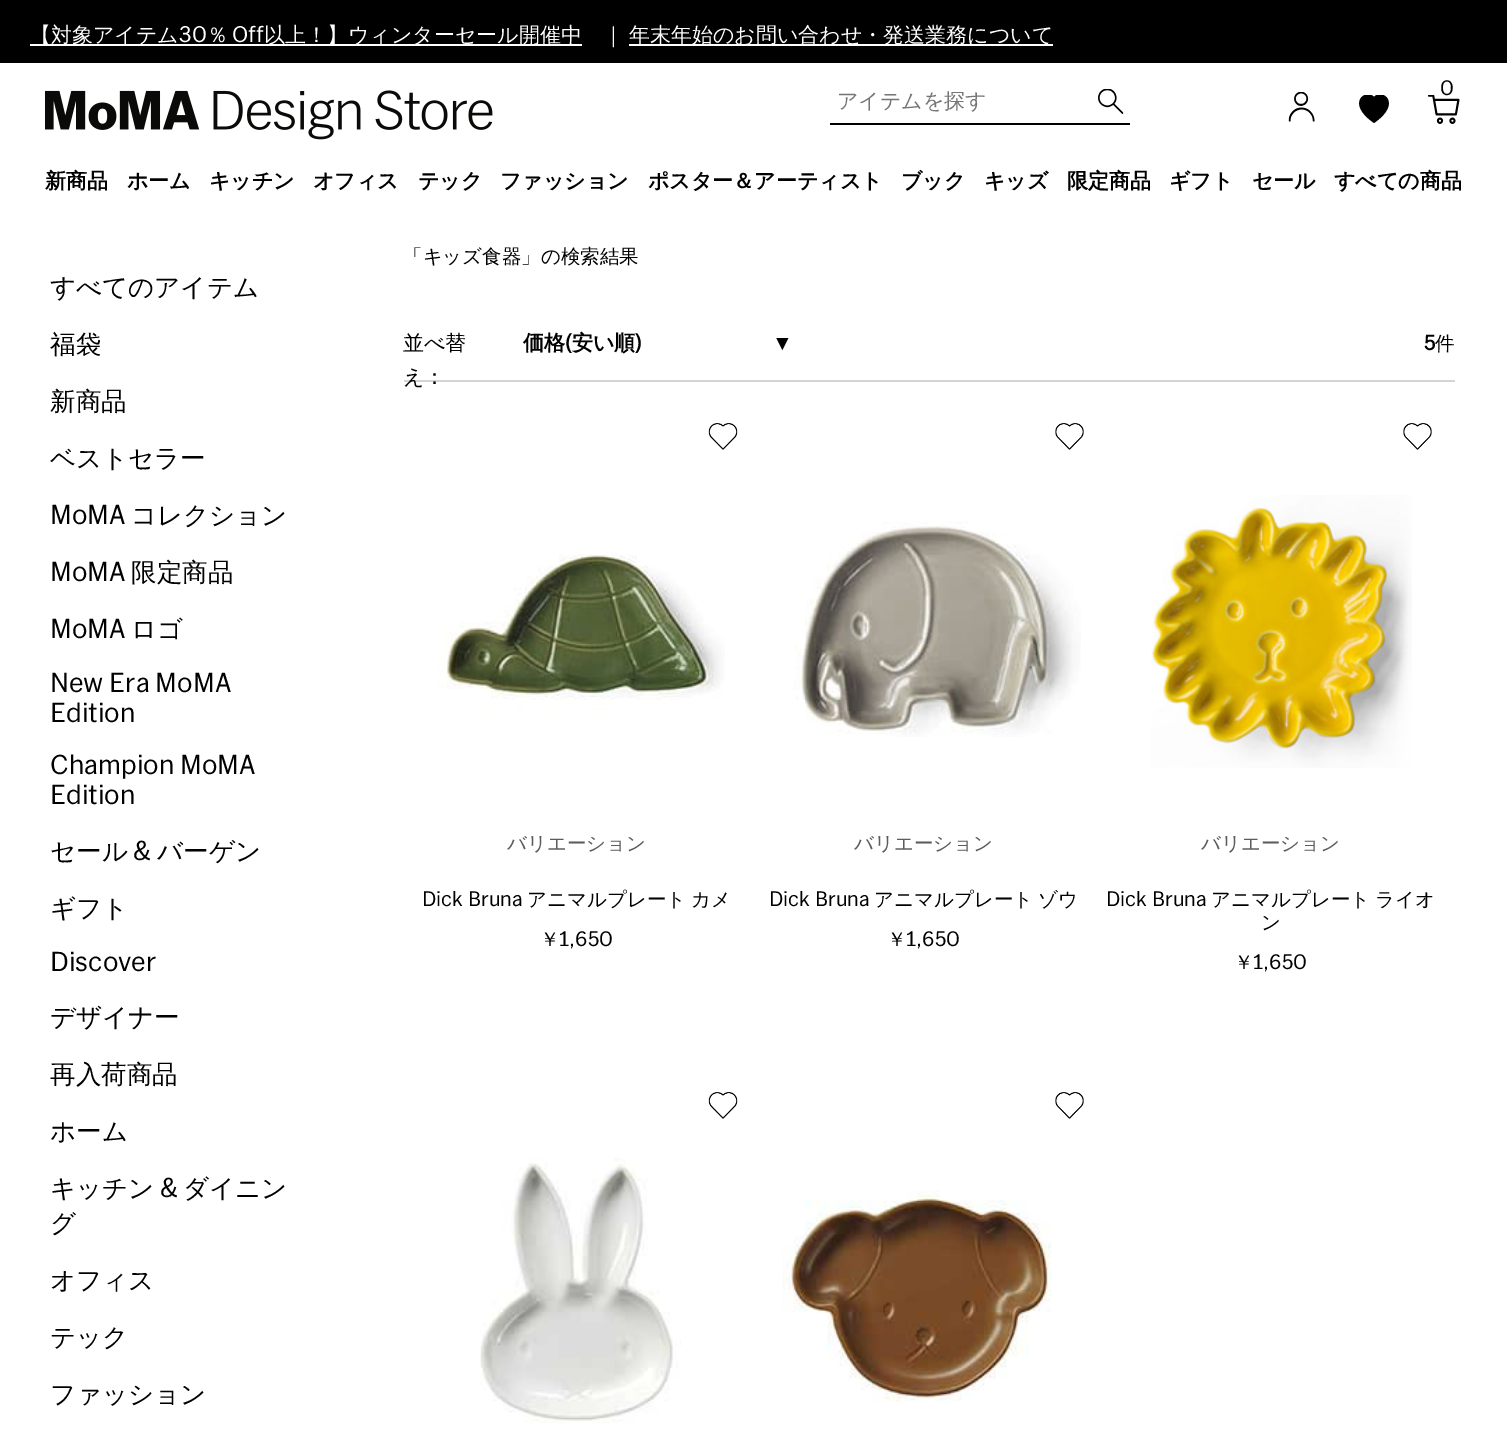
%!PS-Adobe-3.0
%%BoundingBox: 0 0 1507 1449
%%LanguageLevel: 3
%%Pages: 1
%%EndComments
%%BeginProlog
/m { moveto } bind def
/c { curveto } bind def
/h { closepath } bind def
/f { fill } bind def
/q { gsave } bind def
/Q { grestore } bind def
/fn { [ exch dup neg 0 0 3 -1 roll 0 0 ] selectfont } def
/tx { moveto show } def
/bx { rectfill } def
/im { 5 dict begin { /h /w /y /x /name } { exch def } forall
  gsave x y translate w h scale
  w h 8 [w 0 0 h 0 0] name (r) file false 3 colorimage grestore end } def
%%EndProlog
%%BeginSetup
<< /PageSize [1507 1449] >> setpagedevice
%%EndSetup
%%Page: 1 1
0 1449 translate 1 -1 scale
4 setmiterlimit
1 setgray
0 0 1507 1449 bx
0 setgray
0 0 1507 63 bx
1 setgray
30 44 552 2 bx
/WenQuanYiZenHei-Medium 21 fn
(【対象アイテム) 30 42 tx
/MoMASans-Regular 21 fn
(30) 179 42 tx
/WenQuanYiZenHei-Medium 21 fn
(％) 207 42 tx
/MoMASans-Regular 21 fn
(Off) 232 42 tx
/WenQuanYiZenHei-Medium 21 fn
(以上！】ウィンターセール開催中) 264 42 tx
(｜) 603 42 tx
629 44 424 2 bx
(年末年始のお問い合わせ・発送業務について) 629 42 tx
(image0.raw) 1428 95 32 29 im
/MoMASans-Regular 19.5 fn
0 setgray
(0) 1440 95 tx
(image1.raw) 1288 92 27 30 im
q
1359 95 30 30 rectclip
1374 97 m 1382 88 1403 103 1374 123 c 1345 103 1366 88 1374 97 c h f
Q
(image2.raw) 45 90 448 50 im
/WenQuanYiZenHei-Bold 21 fn
(新商品) 45 188 tx
(ホーム) 127 188 tx
(キッチン) 209 188 tx
(オフィス) 313 188 tx
(テック) 418 188 tx
(ファッション) 500 188 tx
(ポスター＆アーティスト) 648 188 tx
(ブック) 901 188 tx
(キッズ) 984 188 tx
(限定商品) 1067 188 tx
(ギフト) 1169 188 tx
(セール) 1252 188 tx
(すべての商品) 1334 188 tx
830 123 300 2 bx
/WenQuanYiZenHei-Medium 21 fn
0.459 setgray
(アイテムを探す) 837 108 tx
(image3.raw) 1098 89 26 25 im
/WenQuanYiZenHei-Medium 25.5 fn
0 setgray
(すべてのアイテム) 50 296 tx
(福袋) 50 353 tx
(新商品) 50 410 tx
(ベストセラー) 50 467 tx
/MoMASans-Regular 25.5 fn
(MoMA) 50 524 tx
/WenQuanYiZenHei-Medium 25.5 fn
(コレクション) 131 524 tx
/MoMASans-Regular 25.5 fn
(MoMA) 50 581 tx
/WenQuanYiZenHei-Medium 25.5 fn
(限定商品) 131 581 tx
/MoMASans-Regular 25.5 fn
(MoMA) 50 638 tx
/WenQuanYiZenHei-Medium 25.5 fn
(ロゴ) 131 638 tx
/MoMASans-Regular 25.5 fn
(New Era MoMA) 50 692 tx
(Edition) 50 722 tx
(Champion MoMA) 50 774 tx
(Edition) 50 804 tx
/WenQuanYiZenHei-Medium 25.5 fn
(セール) 50 860 tx
/MoMASans-Regular 25.5 fn
(&) 133 860 tx
/WenQuanYiZenHei-Medium 25.5 fn
(バーゲン) 157 860 tx
(ギフト) 50 917 tx
/MoMASans-Regular 25.5 fn
(Discover) 50 971 tx
/WenQuanYiZenHei-Medium 25.5 fn
(デザイナー) 50 1026 tx
(再入荷商品) 50 1083 tx
(ホーム) 50 1140 tx
(キッチン) 50 1197 tx
/MoMASans-Regular 25.5 fn
(&) 160 1197 tx
/WenQuanYiZenHei-Medium 25.5 fn
(ダイニン) 183 1197 tx
(グ) 50 1232 tx
(オフィス) 50 1289 tx
(テック) 50 1346 tx
(ファッション) 50 1403 tx
/WenQuanYiZenHei-Medium 19.5 fn
(「キッズ食器」の検索結果) 403 263 tx
0.831 setgray
404 380 1051 2 bx
/WenQuanYiZenHei-Medium 21 fn
0 setgray
(並べ替) 403 350 tx
(え：) 403 384 tx
/WenQuanYiZenHei-Bold 21 fn
(価格) 523 350 tx
/MoMASans-Bold 21 fn
(\() 565 350 tx
/WenQuanYiZenHei-Bold 21 fn
(安い順) 572 350 tx
/MoMASans-Bold 21 fn
(\)) 635 350 tx
/LiberationSans-Bold 21 fn
(▼) 772 350 tx
/MoMASans-Bold 19.5 fn
(5) 1424 350 tx
/WenQuanYiZenHei-Medium 19.5 fn
(件) 1435 350 tx
(image4.raw) 708 423 30 27 im
(image5.raw) 437 554 288 157 im
0.361 setgray
(バリエーション) 507 850 tx
/MoMASans-Regular 19.5 fn
0 setgray
(Dick Bruna) 422 906 tx
/WenQuanYiZenHei-Medium 19.5 fn
(アニマルプレート) 527 906 tx
(カメ) 691 906 tx
(￥) 540 946 tx
/MoMASans-Regular 19.5 fn
(1,650) 559 946 tx
(image6.raw) 1055 423 29 27 im
(image7.raw) 794 521 287 216 im
/WenQuanYiZenHei-Medium 19.5 fn
0.361 setgray
(バリエーション) 854 850 tx
/MoMASans-Regular 19.5 fn
0 setgray
(Dick Bruna) 769 906 tx
/WenQuanYiZenHei-Medium 19.5 fn
(アニマルプレート) 874 906 tx
(ゾウ) 1038 906 tx
(￥) 887 946 tx
/MoMASans-Regular 19.5 fn
(1,650) 906 946 tx
(image6.raw) 1403 423 29 27 im
(image8.raw) 1151 495 261 273 im
/WenQuanYiZenHei-Medium 19.5 fn
0.361 setgray
(バリエーション) 1201 850 tx
/MoMASans-Regular 19.5 fn
0 setgray
(Dick Bruna) 1106 906 tx
/WenQuanYiZenHei-Medium 19.5 fn
(アニマルプレート) 1211 906 tx
(ライオ) 1375 906 tx
(ン) 1261 929 tx
(￥) 1234 969 tx
/MoMASans-Regular 19.5 fn
(1,650) 1253 969 tx
(image4.raw) 708 1092 30 27 im
(image9.raw) 480 1158 201 266 im
(image6.raw) 1055 1092 29 27 im
(image10.raw) 782 1190 270 212 im
showpage
%%EOF
